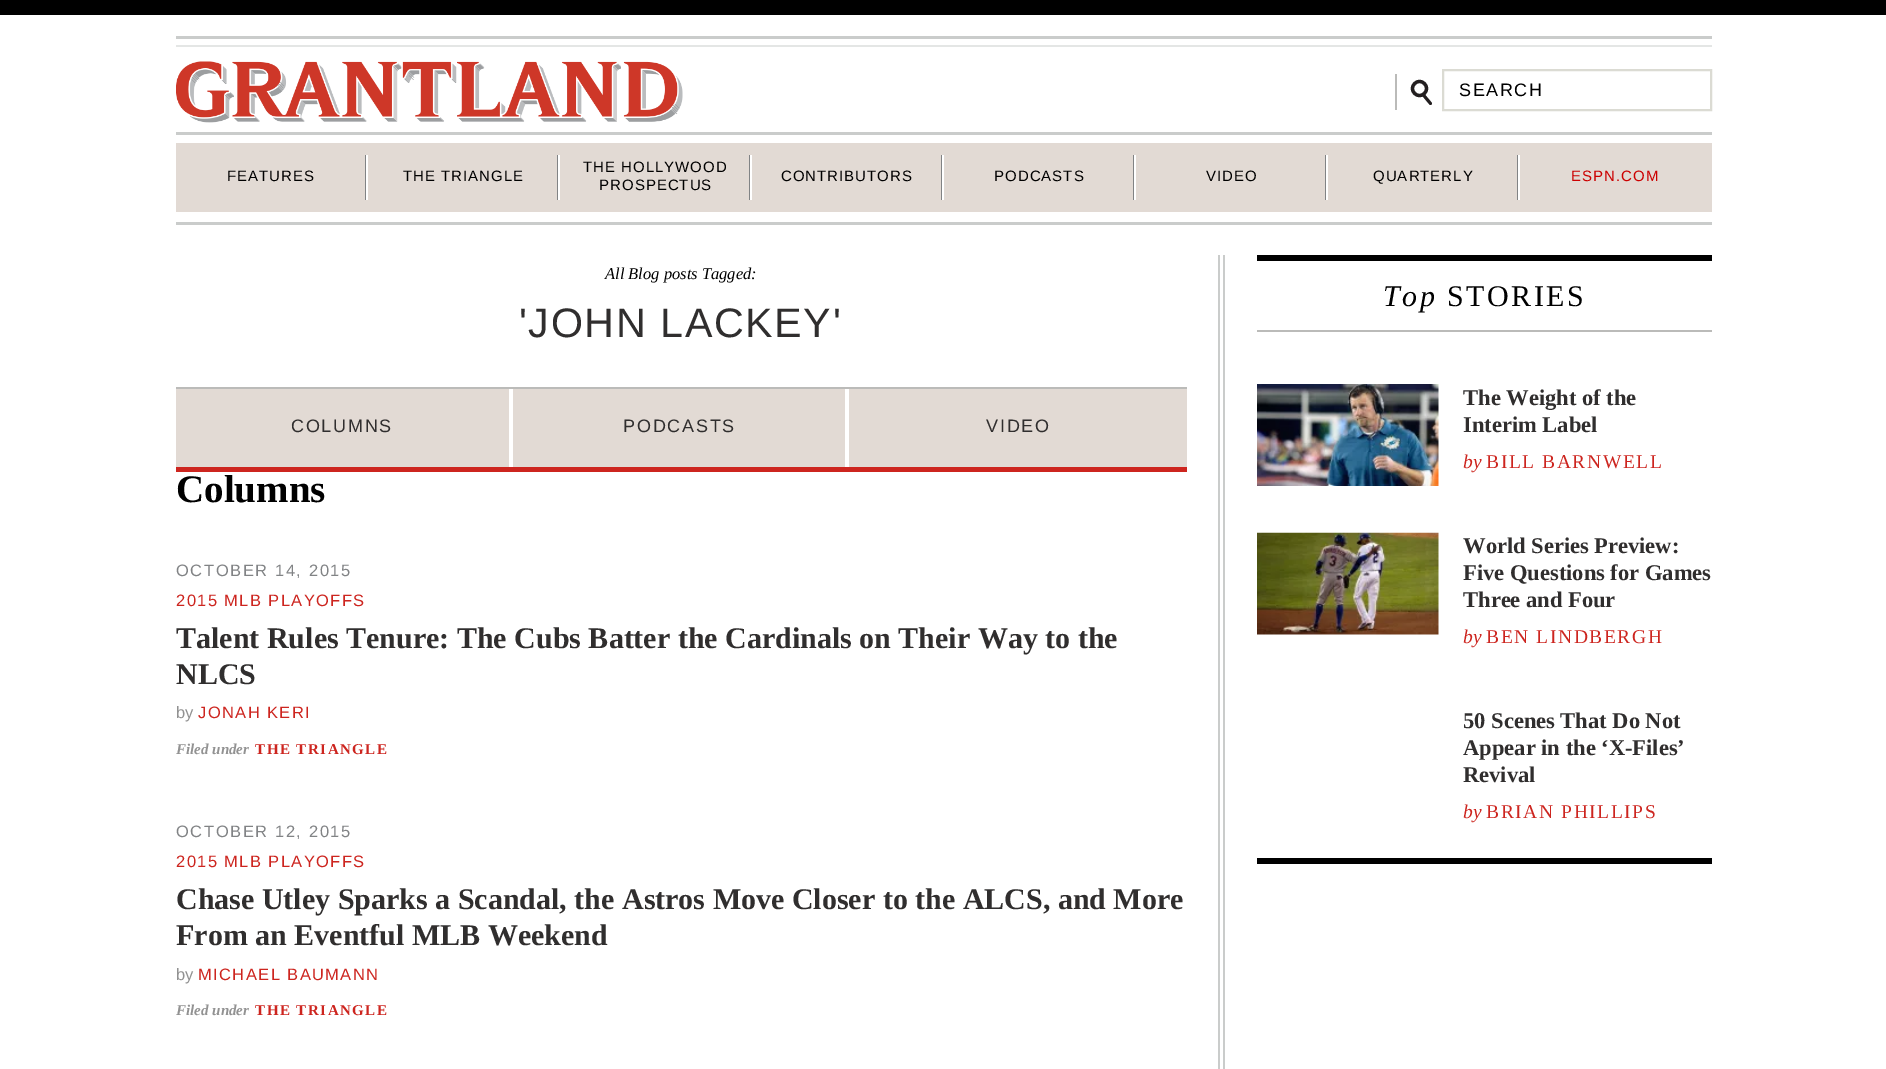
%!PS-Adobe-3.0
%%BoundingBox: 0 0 1886 1069
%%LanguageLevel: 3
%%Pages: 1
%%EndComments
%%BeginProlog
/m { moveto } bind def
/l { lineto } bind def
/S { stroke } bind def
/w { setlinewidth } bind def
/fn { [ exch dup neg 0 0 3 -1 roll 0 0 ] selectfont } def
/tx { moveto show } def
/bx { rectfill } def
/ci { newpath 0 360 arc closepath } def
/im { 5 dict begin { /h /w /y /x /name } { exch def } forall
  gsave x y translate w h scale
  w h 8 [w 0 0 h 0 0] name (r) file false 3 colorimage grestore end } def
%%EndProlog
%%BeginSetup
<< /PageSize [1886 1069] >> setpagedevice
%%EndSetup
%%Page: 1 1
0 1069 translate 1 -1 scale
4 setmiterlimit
1 setgray
0 0 1886 1069 bx
0 setgray
0 0 1886 15 bx
0.894 0.902 0.898 setrgbcolor
176 45 1536 2 bx
0.792 0.8 0.796 setrgbcolor
176 132 1536 3 bx
176 36 1536 3 bx
(image0.raw) 176 61 507 62 im
0.137 0.122 0.125 setrgbcolor
3.3 w
1419.5 88.5 7 ci S
2.9 w
1 setlinecap
1423 94.5 m 1430.5 103.5 l S
0.733 0.733 0.725 setrgbcolor
1395 74 2 36 bx
0.859 0.859 0.827 setrgbcolor
2 w
0 setlinecap
1443 70 268 40 rectstroke
/LiberationSans-Regular 18 fn
0 setgray
1459 96 m 1.5 0 (SEARCH) ashow
0.792 0.8 0.796 setrgbcolor
176 222 1536 3 bx
0.886 0.855 0.831 setrgbcolor
176 143 1536 69 bx
/LiberationSans-Regular 15 fn
0 setgray
227 181 m 1 0 (FEATURES) ashow
0.506 0.514 0.522 setrgbcolor
365 155 1 45 bx
1 setgray
366 155 2 45 bx
0 setgray
403 181 m 1 0 (THE TRIANGLE) ashow
0.506 0.514 0.522 setrgbcolor
557 155 1 45 bx
1 setgray
558 155 2 45 bx
0 setgray
583 172 m 1 0 (THE HOLLYWOOD) ashow
0.506 0.514 0.522 setrgbcolor
749 155 1 45 bx
1 setgray
750 155 2 45 bx
0 setgray
599 190 m 1 0 (PROSPECTUS) ashow
781 181 m 1 0 (CONTRIBUTORS) ashow
0.506 0.514 0.522 setrgbcolor
941 155 1 45 bx
1 setgray
942 155 2 45 bx
0 setgray
994 181 m 1 0 (PODCASTS) ashow
0.506 0.514 0.522 setrgbcolor
1133 155 1 45 bx
1 setgray
1134 155 2 45 bx
0 setgray
1206 181 m 1 0 (VIDEO) ashow
0.506 0.514 0.522 setrgbcolor
1325 155 1 45 bx
1 setgray
1326 155 2 45 bx
0 setgray
1373 181 m 1 0 (QUARTERLY) ashow
0.506 0.514 0.522 setrgbcolor
1517 155 1 45 bx
1 setgray
1518 155 2 45 bx
0.8 0 0 setrgbcolor
1571 181 m 1 0 (ESPN.COM) ashow
0.733 0.733 0.725 setrgbcolor
176 387 1011 2 bx
/LiberationSerif-Italic 16.5 fn
0 setgray
(All Blog posts Tagged:) 605 279 tx
/LiberationSans-Regular 41.25 fn
0.188 0.18 0.18 setrgbcolor
519 337 m 1.6 0 ('JOHN LACKEY') ashow
0.804 0.145 0.122 setrgbcolor
176 467 1011 5 bx
0.886 0.855 0.831 setrgbcolor
176 389 333 78 bx
/LiberationSans-Regular 18 fn
0.188 0.18 0.18 setrgbcolor
291 432 m 1.75 0 (COLUMNS) ashow
0.886 0.855 0.831 setrgbcolor
513 389 332 78 bx
0.188 0.18 0.18 setrgbcolor
623 432 m 1.75 0 (PODCASTS) ashow
0.886 0.855 0.831 setrgbcolor
849 389 338 78 bx
0.188 0.18 0.18 setrgbcolor
986 432 m 1.75 0 (VIDEO) ashow
/LiberationSerif-Bold 39 fn
0 setgray
(Columns) 176 502 tx
/LiberationSans-Regular 16.5 fn
0.506 0.514 0.522 setrgbcolor
176 576 m 1.6 0 (OCTOBER 14, 2015) ashow
0.804 0.145 0.122 setrgbcolor
176 606 m 1.4 0 (2015 MLB PLAYOFFS) ashow
/LiberationSerif-Bold 30 fn
0.188 0.18 0.18 setrgbcolor
(Talent Rules Tenure: The Cubs Batter the Cardinals on Their Way to the) 176 648 tx
(NLCS) 176 684 tx
/LiberationSans-Regular 16.5 fn
0.573 setgray
(by) 176 718 tx
0.804 0.145 0.122 setrgbcolor
198 718 m 1.4 0 (JONAH KERI) ashow
/LiberationSerif-BoldItalic 15 fn
0.573 setgray
(Filed under) 176 754 tx
/LiberationSerif-Bold 15 fn
0.804 0.145 0.122 setrgbcolor
255 754 m 1.5 0 (THE TRIANGLE) ashow
/LiberationSans-Regular 16.5 fn
0.506 0.514 0.522 setrgbcolor
176 837 m 1.6 0 (OCTOBER 12, 2015) ashow
0.804 0.145 0.122 setrgbcolor
176 867 m 1.4 0 (2015 MLB PLAYOFFS) ashow
/LiberationSerif-Bold 30 fn
0.188 0.18 0.18 setrgbcolor
(Chase Utley Sparks a Scandal, the Astros Move Closer to the ALCS, and More) 176 909 tx
(From an Eventful MLB Weekend) 176 945 tx
/LiberationSans-Regular 16.5 fn
0.573 setgray
(by) 176 980 tx
0.804 0.145 0.122 setrgbcolor
198 980 m 1.4 0 (MICHAEL BAUMANN) ashow
/LiberationSerif-BoldItalic 15 fn
0.573 setgray
(Filed under) 176 1015 tx
/LiberationSerif-Bold 15 fn
0.804 0.145 0.122 setrgbcolor
255 1015 m 1.5 0 (THE TRIANGLE) ashow
0.792 0.8 0.796 setrgbcolor
1218 255 2 814 bx
1223 255 2 814 bx
0 setgray
1257 255 455 6 bx
0.733 0.733 0.725 setrgbcolor
1257 330 455 2 bx
/LiberationSerif-Italic 30 fn
0 setgray
1383 306 m 2.5 0 (Top) ashow
/LiberationSerif-Regular 30 fn
1447 306 m 2.5 0 (STORIES) ashow
(image1.raw) 1257 384 182 102 im
/LiberationSerif-Bold 22.5 fn
0.188 0.18 0.18 setrgbcolor
(The Weight of the) 1463 405 tx
(Interim Label) 1463 432 tx
/LiberationSerif-Italic 19.5 fn
0.804 0.145 0.122 setrgbcolor
(by) 1463 468 tx
/LiberationSerif-Regular 19.5 fn
1486 468 m 1.6 0 (BILL BARNWELL) ashow
(image2.raw) 1257 532 182 103 im
/LiberationSerif-Bold 22.5 fn
0.188 0.18 0.18 setrgbcolor
(World Series Preview:) 1463 553 tx
(Five Questions for Games) 1463 580 tx
(Three and Four) 1463 607 tx
/LiberationSerif-Italic 19.5 fn
0.804 0.145 0.122 setrgbcolor
(by) 1463 643 tx
/LiberationSerif-Regular 19.5 fn
1486 643 m 1.6 0 (BEN LINDBERGH) ashow
/LiberationSerif-Bold 22.5 fn
0.188 0.18 0.18 setrgbcolor
(50 Scenes That Do Not) 1463 728 tx
(Appear in the ‘X-Files’) 1463 755 tx
(Revival) 1463 782 tx
/LiberationSerif-Italic 19.5 fn
0.804 0.145 0.122 setrgbcolor
(by) 1463 818 tx
/LiberationSerif-Regular 19.5 fn
1486 818 m 1.6 0 (BRIAN PHILLIPS) ashow
0 setgray
1257 858 455 6 bx
showpage
%%EOF
